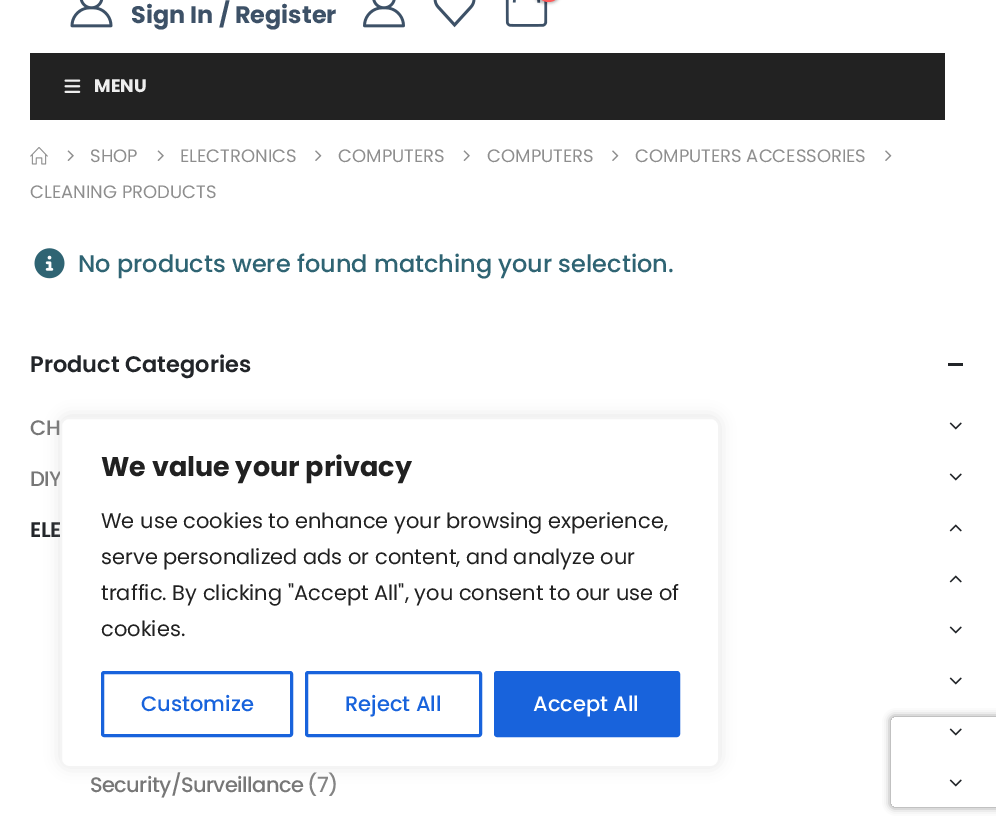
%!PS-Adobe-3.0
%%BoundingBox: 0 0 996 827
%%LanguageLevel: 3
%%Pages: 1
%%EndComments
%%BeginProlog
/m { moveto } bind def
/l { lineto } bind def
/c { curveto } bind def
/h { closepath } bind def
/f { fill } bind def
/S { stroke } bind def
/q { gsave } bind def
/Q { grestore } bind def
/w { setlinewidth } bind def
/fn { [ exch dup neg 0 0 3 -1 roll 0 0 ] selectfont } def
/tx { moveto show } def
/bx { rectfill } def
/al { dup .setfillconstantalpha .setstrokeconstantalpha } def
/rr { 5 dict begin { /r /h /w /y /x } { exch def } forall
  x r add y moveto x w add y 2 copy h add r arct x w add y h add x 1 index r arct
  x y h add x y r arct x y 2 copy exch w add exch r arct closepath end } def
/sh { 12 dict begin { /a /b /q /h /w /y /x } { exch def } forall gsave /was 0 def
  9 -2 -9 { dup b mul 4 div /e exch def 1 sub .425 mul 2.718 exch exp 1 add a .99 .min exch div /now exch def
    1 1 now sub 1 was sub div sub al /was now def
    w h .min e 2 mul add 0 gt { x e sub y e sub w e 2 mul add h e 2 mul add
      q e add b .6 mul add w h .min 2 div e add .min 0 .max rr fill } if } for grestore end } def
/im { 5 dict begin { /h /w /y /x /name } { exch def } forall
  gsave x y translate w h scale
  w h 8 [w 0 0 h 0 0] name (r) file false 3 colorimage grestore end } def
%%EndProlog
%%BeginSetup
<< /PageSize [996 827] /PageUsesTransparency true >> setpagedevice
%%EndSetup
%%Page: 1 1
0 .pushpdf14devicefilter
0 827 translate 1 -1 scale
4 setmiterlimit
1 setgray
0 0 996 827 bx
(image0.raw) 70 0 43 28 im
/Poppins-Bold 24 fn
0.239 0.318 0.404 setrgbcolor
(Sign In / Register) 131 23 tx
(image1.raw) 363 0 42 28 im
(image2.raw) 433 0 43 28 im
(image3.raw) 505 0 43 27 im
0 setgray
534 -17 26 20 12.5 1.5 0.3 sh
1 0.357 0.357 setrgbcolor
536 -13 25 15 12.5 rr f
0.133 setgray
30 53 915 67 bx
(image4.raw) 64 79 17 14 im
/Poppins-Bold 18 fn
0.933 setgray
(MENU) 94 92 tx
(image5.raw) 30 147 18 18 im
(image6.raw) 67 150 7 11 im
/Poppins-Regular 18 fn
0.557 setgray
(SHOP) 90 162 tx
(image6.raw) 157 150 7 11 im
(ELECTRONICS) 180 162 tx
(image7.raw) 315 150 7 11 im
(COMPUTERS) 338 162 tx
(image6.raw) 463 150 7 11 im
(COMPUTERS) 487 162 tx
(image7.raw) 612 150 7 11 im
(COMPUTERS ACCESSORIES) 635 162 tx
(image7.raw) 885 150 7 11 im
(CLEANING PRODUCTS) 30 198 tx
(image8.raw) 34 248 31 31 im
/Poppins-Medium 24 fn
0.184 0.392 0.451 setrgbcolor
(No products were found matching your selection.) 78 272 tx
/Poppins-SemiBold 22.5 fn
0.133 0.145 0.161 setrgbcolor
(Product Categories) 30 372 tx
948 363 15 3 bx
/Poppins-Medium 21 fn
0.467 setgray
30 435 m -0.6 0 (CH) ashow
(image9.raw) 949 422 13 8 im
30 486 m -0.6 0 (DIY) ashow
(image9.raw) 949 473 13 8 im
/Poppins-SemiBold 21 fn
0.133 0.145 0.161 setrgbcolor
30 537 m -0.6 0 (ELE) ashow
(image10.raw) 949 524 13 8 im
(image10.raw) 949 575 13 8 im
(image9.raw) 949 626 13 8 im
(image9.raw) 949 677 13 8 im
q
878 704 m 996 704 l 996 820 l 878 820 l h 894 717 m 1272 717 l 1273.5 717 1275 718.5 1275 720 c 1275 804 l 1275 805.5 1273.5 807 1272 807 c 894 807 l 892.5 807 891 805.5 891 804 c 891 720 l 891 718.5 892.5 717 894 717 c h eoclip newpath
0.502 setgray
891 717 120 90 3 4 1 sh
Q
(image9.raw) 949 728 13 8 im
/Poppins-Medium 21 fn
0.467 setgray
90 792 m -0.6 0 (Security/Surveillance) ashow
0.518 setgray
307 792 m -0.6 0 (\(7\)) ashow
(image9.raw) 949 779 13 8 im
0.675 0.671 0.671 setrgbcolor
60 416 660 351 9 7.5 0.3 sh
1 setgray
61 418 658 349 8 rr q f Q
0.957 setgray
2 w
S
/Poppins-Bold 27 fn
0.129 setgray
(We value your privacy) 101 476 tx
/Poppins-Regular 21 fn
(We use cookies to enhance your browsing experience,) 101 528 tx
(serve personalized ads or content, and analyze our) 101 564 tx
(traffic. By clicking "Accept All", you consent to our use of) 101 600 tx
(cookies.) 101 636 tx
0.094 0.388 0.863 setrgbcolor
3 w
102.5 672.5 189 63 1.5 rr S
/Poppins-Medium 21 fn
(Customize) 141 711 tx
306.5 672.5 174 63 1.5 rr S
(Reject All) 345 711 tx
495.5 672.5 183 63 1.5 rr q f Q
S
1 setgray
(Accept All) 533 711 tx
.poppdf14devicefilter showpage
%%EOF
